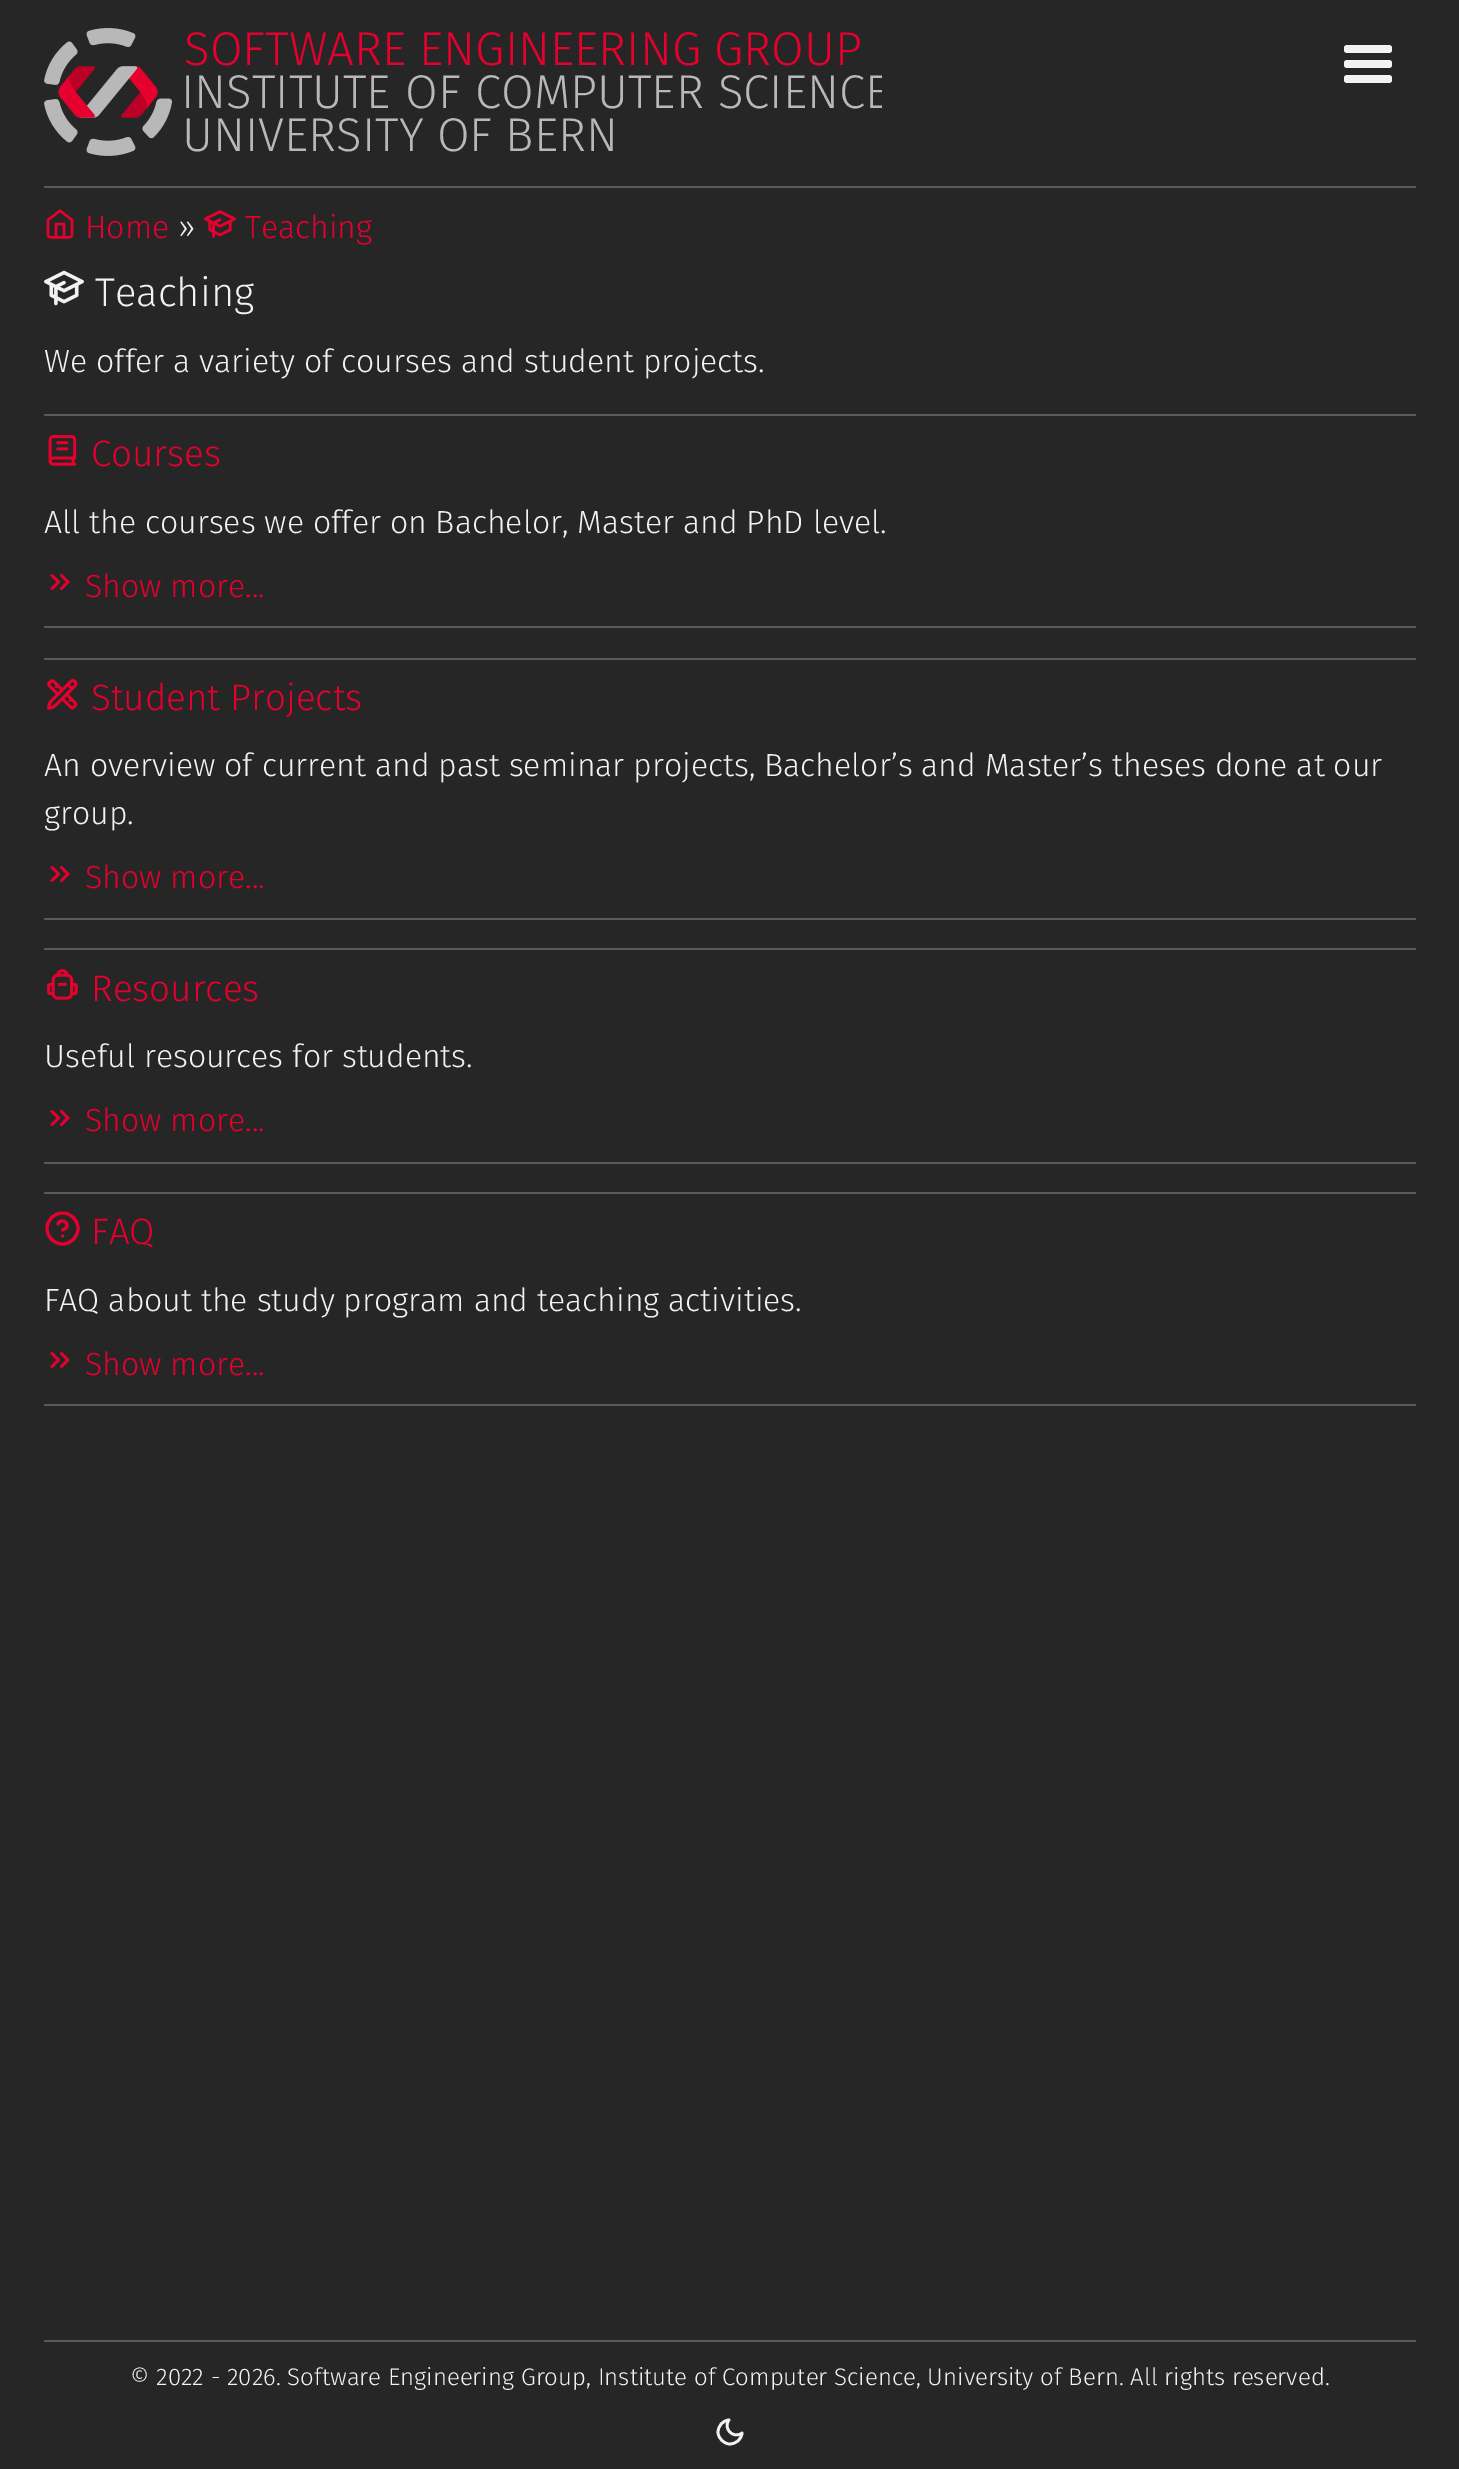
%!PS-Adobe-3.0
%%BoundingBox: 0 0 1459 2469
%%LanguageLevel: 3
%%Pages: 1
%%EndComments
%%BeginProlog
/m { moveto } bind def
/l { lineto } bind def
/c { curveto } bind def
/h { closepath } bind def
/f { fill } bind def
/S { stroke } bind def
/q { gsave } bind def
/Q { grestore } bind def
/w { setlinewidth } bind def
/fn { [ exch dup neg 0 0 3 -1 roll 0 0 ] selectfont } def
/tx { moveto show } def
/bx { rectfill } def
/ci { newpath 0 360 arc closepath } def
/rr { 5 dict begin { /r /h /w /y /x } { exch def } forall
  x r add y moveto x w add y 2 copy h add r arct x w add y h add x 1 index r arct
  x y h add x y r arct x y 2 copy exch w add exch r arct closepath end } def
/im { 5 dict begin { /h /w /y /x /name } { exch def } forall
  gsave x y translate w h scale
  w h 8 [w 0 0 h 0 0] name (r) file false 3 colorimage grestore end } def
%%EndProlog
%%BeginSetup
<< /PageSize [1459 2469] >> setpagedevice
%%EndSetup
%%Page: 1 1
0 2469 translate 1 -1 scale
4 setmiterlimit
0.149 setgray
0 0 1459 2469 bx
0.349 setgray
44 186 1372 2 bx
(image0.raw) 44 28 129 128 im
/FiraSans-Light 47.4 fn
0.902 0 0.18 setrgbcolor
(SOFTWARE ENGINEERING GROUP) 184 65 tx
q
44 28 838 128 rectclip
0.722 setgray
181 108 m 1 0 32 (INSTITUTE OF COMPUTER SCIENCE) widthshow
Q
0.722 setgray
(UNIVERSITY OF BERN) 182 151 tx
0.949 setgray
1344 45 48 8 3 rr f
1344 60 48 8 3 rr f
1344 75 48 8 3 rr f
(image1.raw) 46 209 28 30 im
/FiraSans-Light 32 fn
0.902 0 0.18 setrgbcolor
(Home) 85 238 tx
0.949 setgray
(») 178 238 tx
(image2.raw) 204 210 32 28 im
0.902 0 0.18 setrgbcolor
(Teaching) 245 238 tx
(image3.raw) 44 270 40 36 im
/FiraSans-Light 40 fn
0.949 setgray
(Teaching) 95 306 tx
/FiraSans-Light 32 fn
(We offer a variety of courses and student projects.) 44 372 tx
0.349 setgray
44 414 1372 2 bx
44 626 1372 2 bx
(image4.raw) 48 435 29 31 im
/FiraSans-Light 36.75 fn
0.902 0 0.18 setrgbcolor
(Courses) 91 466 tx
/FiraSans-Light 32 fn
0.949 setgray
(All the courses we offer on Bachelor, Master and PhD level.) 44 533 tx
0.902 0 0.18 setrgbcolor
(Show more...) 85 597 tx
2.7 w
1 setlinecap
1 setlinejoin
52 588.5 m 58.5 582 l 52 575.5 l 61.5 588.5 m 68 582 l 61.5 575.5 l S
0.349 setgray
44 658 1372 2 bx
44 918 1372 2 bx
(image5.raw) 47 679 31 31 im
/FiraSans-Light 36.75 fn
0.902 0 0.18 setrgbcolor
(Student Projects) 91 710 tx
/FiraSans-Light 32 fn
0.949 setgray
(An overview of current and past seminar projects, Bachelor’s and Master’s theses done at our) 44 776 tx
(group.) 44 824 tx
0.902 0 0.18 setrgbcolor
(Show more...) 85 888 tx
52 880.5 m 58.5 874 l 52 867.5 l 61.5 880.5 m 68 874 l 61.5 867.5 l S
0.349 setgray
44 948 1372 2 bx
44 1162 1372 2 bx
(image6.raw) 47 969 31 31 im
/FiraSans-Light 36.75 fn
0.902 0 0.18 setrgbcolor
(Resources) 91 1001 tx
/FiraSans-Light 32 fn
0.949 setgray
(Useful resources for students.) 44 1067 tx
0.902 0 0.18 setrgbcolor
(Show more...) 85 1131 tx
52 1124.5 m 58.5 1118 l 52 1111.5 l 61.5 1124.5 m 68 1118 l 61.5 1111.5 l S
0.349 setgray
44 1192 1372 2 bx
44 1404 1372 2 bx
/FiraSans-Light 36.75 fn
0.902 0 0.18 setrgbcolor
(FAQ) 91 1244 tx
3.1 w
0 setlinecap
0 setlinejoin
62.5 1228.5 15.5 ci S
1 setlinecap
1 setlinejoin
58 1224 m 61 1215.5 74 1226 62.5 1230 c 62.5 1236 m 62.5 1236 l S
/FiraSans-Light 32 fn
0.949 setgray
(FAQ about the study program and teaching activities.) 44 1311 tx
0.902 0 0.18 setrgbcolor
(Show more...) 85 1375 tx
2.7 w
52 1366.5 m 58.5 1360 l 52 1353.5 l 61.5 1366.5 m 68 1360 l 61.5 1353.5 l S
0.349 setgray
44 2340 1372 2 bx
/FiraSans-Light 24 fn
0.949 setgray
(© 2022 - 2026. Software Engineering Group, Institute of Computer Science, University of Bern. All rights reserved.) 130 2385 tx
742 2433 m 741.5 2439.5 736 2444 729.5 2444 c 723.5 2443.5 718.5 2438.5 718 2432.5 c 718 2426 722.5 2420.5 729 2420 c 722.5 2428.5 733.5 2439.5 742 2433 c h S
showpage
%%EOF
